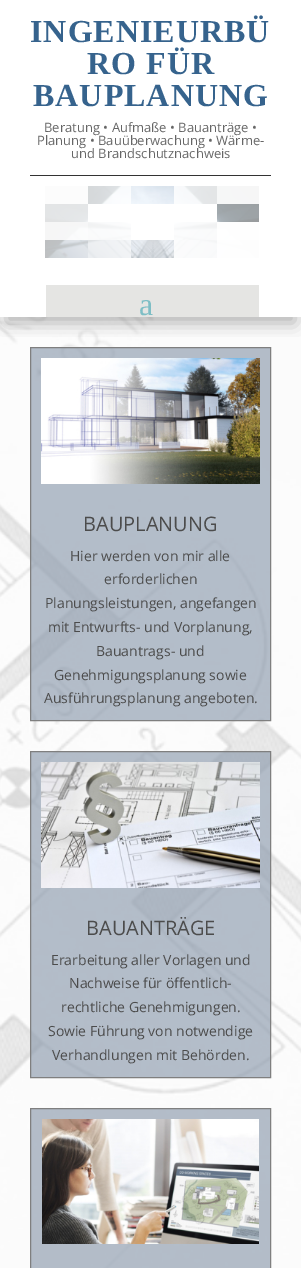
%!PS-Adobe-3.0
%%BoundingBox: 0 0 301 1268
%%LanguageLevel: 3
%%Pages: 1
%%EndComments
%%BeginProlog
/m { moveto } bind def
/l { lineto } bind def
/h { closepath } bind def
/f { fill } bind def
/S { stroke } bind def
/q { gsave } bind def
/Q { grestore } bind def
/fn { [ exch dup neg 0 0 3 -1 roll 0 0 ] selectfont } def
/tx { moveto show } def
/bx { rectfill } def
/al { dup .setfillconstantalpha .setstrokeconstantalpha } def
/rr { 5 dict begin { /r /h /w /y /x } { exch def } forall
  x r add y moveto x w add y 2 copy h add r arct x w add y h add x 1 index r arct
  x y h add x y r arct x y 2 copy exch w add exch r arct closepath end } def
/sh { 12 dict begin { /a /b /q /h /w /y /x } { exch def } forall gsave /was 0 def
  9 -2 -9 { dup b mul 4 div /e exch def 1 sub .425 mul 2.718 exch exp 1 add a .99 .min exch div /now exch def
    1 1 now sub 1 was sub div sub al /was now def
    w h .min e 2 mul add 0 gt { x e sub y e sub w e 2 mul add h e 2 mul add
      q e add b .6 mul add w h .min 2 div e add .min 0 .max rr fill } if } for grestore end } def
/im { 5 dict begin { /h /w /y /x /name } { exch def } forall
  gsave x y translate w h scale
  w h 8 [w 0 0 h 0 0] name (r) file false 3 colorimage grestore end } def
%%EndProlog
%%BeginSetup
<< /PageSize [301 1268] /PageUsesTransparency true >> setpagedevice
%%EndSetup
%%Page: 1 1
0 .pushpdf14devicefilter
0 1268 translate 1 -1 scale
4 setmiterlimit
1 setgray
0 0 301 1268 bx
/LiberationSerif-Bold 32 fn
0.212 0.388 0.553 setrgbcolor
30 42 m 1 0 (INGENIEURBÜ) ashow
87 74 m 1 0 (RO FÜR) ashow
33 106 m 1 0 (BAUPLANUNG) ashow
/OpenSans-Regular 13 fn
0.4 setgray
(Beratung • Aufmaße • Bauanträge •) 44 132 tx
(Planung • Bauüberwachung • Wärme-) 37 145 tx
(und Brandschutznachweis) 71 158 tx
(image1.raw) 0 317 301 951 im
0.63 al
0.537 0.596 0.671 setrgbcolor
30.5 347.5 m 270.5 347.5 l 270.5 720.5 l 30.5 720.5 l h f
1 al
0.498 setgray
30.5 347.5 m 270.5 347.5 l 270.5 720.5 l 30.5 720.5 l h S
q
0 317 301 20 rectclip
0 setgray
6 193 289 130 0 9 0.3 sh
Q
0.2 setgray
30 175 241 1 bx
(image0.raw) 45 186 214 72 im
0.898 0.898 0.89 setrgbcolor
46 285 213 32 bx
/LiberationSerif-Regular 32 fn
0.494 0.745 0.773 setrgbcolor
(a) 139 315 tx
(image2.raw) 41 358 219 126 im
/OpenSans-Regular 20 fn
0.298 setgray
(BAUPLANUNG) 83 531 tx
/OpenSans-Regular 14 fn
(Hier werden von mir alle) 70 561 tx
(erforderlichen) 104 584 tx
(Planungsleistungen, angefangen) 45 608 tx
(mit Entwurfts- und Vorplanung,) 48 632 tx
(Bauantrags- und) 96 656 tx
(Genehmigungsplanung sowie) 54 680 tx
(Ausführungsplanung angeboten.) 44 703 tx
0.63 al
0.537 0.596 0.671 setrgbcolor
30.5 751.5 m 270.5 751.5 l 270.5 1077.5 l 30.5 1077.5 l h f
1 al
0.498 setgray
30.5 751.5 m 270.5 751.5 l 270.5 1077.5 l 30.5 1077.5 l h S
(image3.raw) 41 762 219 126 im
/OpenSans-Regular 20 fn
0.298 setgray
(BAUANTRÄGE) 86 935 tx
/OpenSans-Regular 14 fn
(Erarbeitung aller Vorlagen und) 51 965 tx
(Nachweise für öffentlich-) 69 988 tx
(rechtliche Genehmigungen.) 61 1012 tx
(Sowie Führung von notwendige) 48 1036 tx
(Verhandlungen mit Behörden.) 52 1060 tx
0.63 al
0.537 0.596 0.671 setrgbcolor
30.5 1108.5 m 270.5 1108.5 l 270.5 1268.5 l 30.5 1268.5 l h f
1 al
0.498 setgray
30.5 1108.5 m 270.5 1108.5 l 270.5 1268.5 l 30.5 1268.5 l h S
(image4.raw) 42 1119 217 125 im
.poppdf14devicefilter showpage
%%EOF
